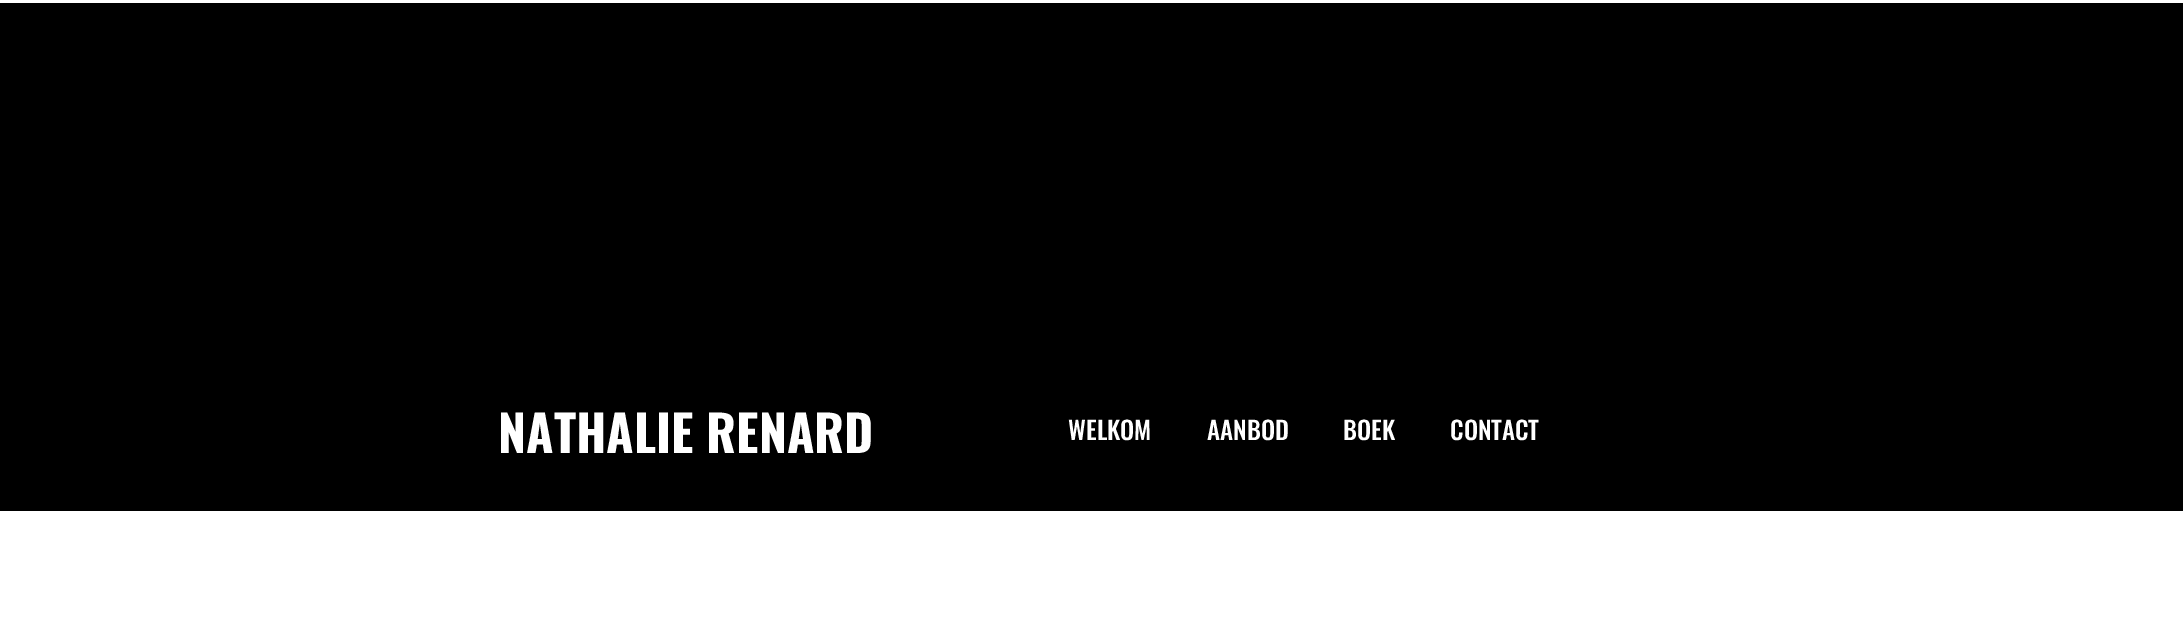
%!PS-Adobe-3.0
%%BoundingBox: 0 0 2183 633
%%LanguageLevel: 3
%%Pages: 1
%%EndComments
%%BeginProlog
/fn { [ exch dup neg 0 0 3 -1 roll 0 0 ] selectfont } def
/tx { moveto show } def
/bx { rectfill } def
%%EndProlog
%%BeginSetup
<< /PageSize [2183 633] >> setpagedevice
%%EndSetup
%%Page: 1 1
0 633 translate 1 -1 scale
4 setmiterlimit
1 setgray
0 0 2183 633 bx
0 setgray
0 3 2183 508 bx
/Oswald-Bold 50 fn
1 setgray
(NATHALIE RENARD) 498 453 tx
/Oswald-Medium 25 fn
(WELKOM) 1068 440 tx
(AANBOD) 1207 440 tx
(BOEK) 1343 440 tx
(CONTACT) 1450 440 tx
showpage
%%EOF
